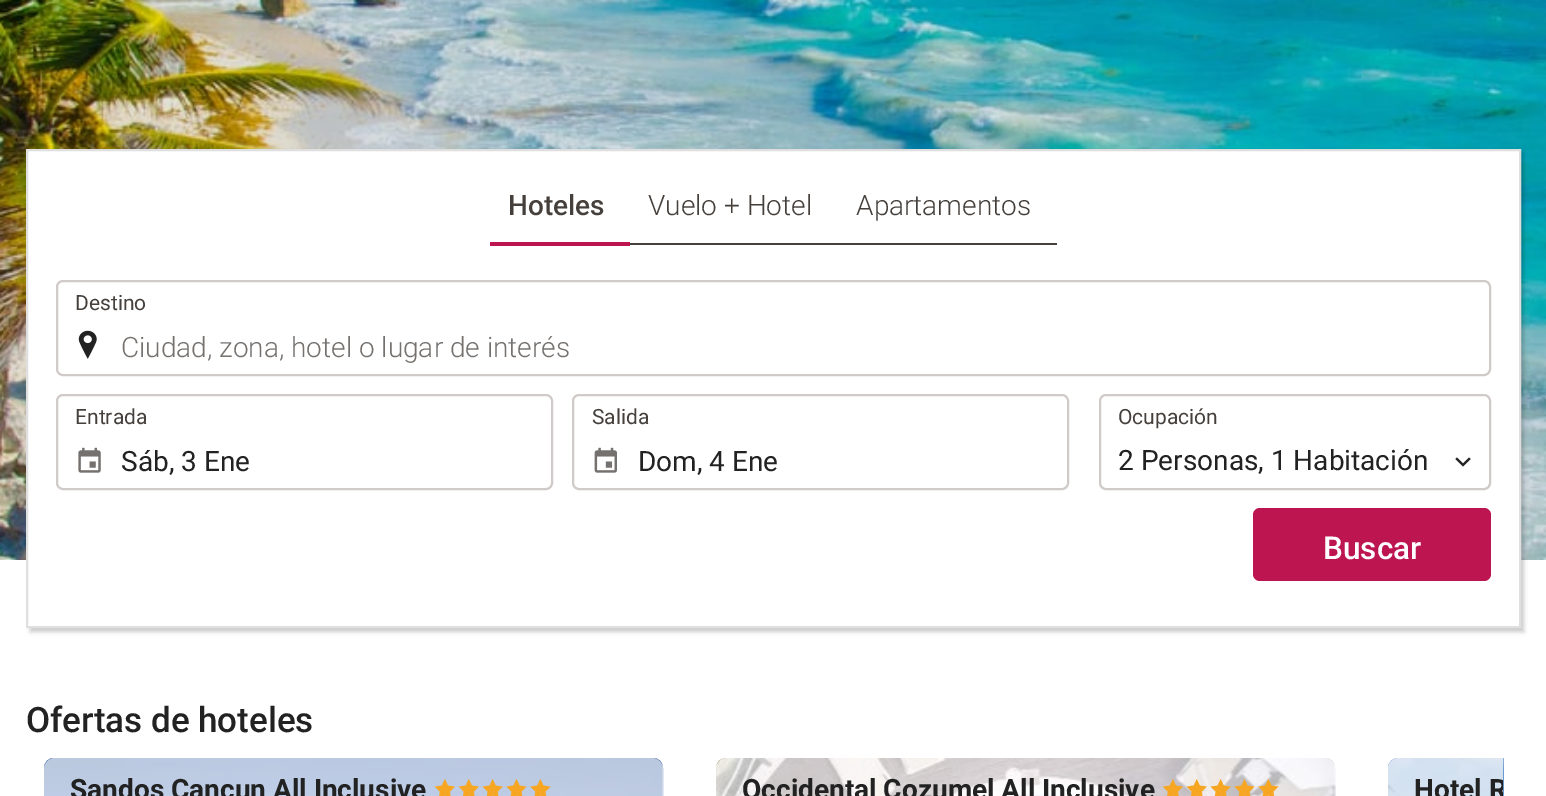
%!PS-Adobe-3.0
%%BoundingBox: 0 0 1546 796
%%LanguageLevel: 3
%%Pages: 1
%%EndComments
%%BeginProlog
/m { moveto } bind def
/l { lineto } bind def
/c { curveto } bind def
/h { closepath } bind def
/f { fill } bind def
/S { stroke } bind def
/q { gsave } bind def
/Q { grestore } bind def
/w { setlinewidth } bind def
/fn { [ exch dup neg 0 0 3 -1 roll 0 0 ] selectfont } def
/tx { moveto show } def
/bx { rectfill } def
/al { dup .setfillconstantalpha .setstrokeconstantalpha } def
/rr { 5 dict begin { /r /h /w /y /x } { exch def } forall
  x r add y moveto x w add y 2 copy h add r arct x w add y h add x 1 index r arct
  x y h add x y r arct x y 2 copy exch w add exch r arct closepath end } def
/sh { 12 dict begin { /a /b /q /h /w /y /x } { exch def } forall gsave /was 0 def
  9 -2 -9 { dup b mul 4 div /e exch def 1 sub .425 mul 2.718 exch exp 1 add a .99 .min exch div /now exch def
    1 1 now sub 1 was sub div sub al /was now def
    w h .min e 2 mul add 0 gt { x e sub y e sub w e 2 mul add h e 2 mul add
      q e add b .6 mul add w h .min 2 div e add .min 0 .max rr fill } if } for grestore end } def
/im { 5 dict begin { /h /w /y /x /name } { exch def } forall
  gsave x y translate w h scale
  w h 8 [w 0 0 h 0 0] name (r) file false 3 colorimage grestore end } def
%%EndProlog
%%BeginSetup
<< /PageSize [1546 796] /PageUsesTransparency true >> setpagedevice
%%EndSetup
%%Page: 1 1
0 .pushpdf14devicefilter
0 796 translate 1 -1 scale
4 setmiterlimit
1 setgray
0 0 1546 796 bx
(image0.raw) 0 0 1546 560 im
0 setgray
30 152 1494 480 0 2 0.2 sh
1 setgray
27 150 m 1520 150 l 1520 627 l 27 627 l h q f Q
0.875 setgray
2 w
S
0.741 0.082 0.314 setrgbcolor
490 242 140 4 bx
/Roboto-Medium 28 fn
0.275 0.251 0.235 setrgbcolor
(Hoteles) 508 215 tx
630 243 427 2 bx
/Roboto-Light 28 fn
(Vuelo + Hotel) 648 215 tx
(Apartamentos) 856 215 tx
(image1.raw) 78 330 19 29 im
0.816 0.796 0.788 setrgbcolor
57 281 1433 94 6 rr S
/Roboto-Regular 21 fn
0.275 0.251 0.235 setrgbcolor
(Destino) 75 310 tx
/Roboto-Light 28 fn
0.455 0.443 0.431 setrgbcolor
(Ciudad, zona, hotel o lugar de interés) 121 357 tx
(image2.raw) 78 447 23 26 im
0.816 0.796 0.788 setrgbcolor
57 395 495 94 6 rr S
/Roboto-Regular 21 fn
0.275 0.251 0.235 setrgbcolor
(Entrada) 75 424 tx
/Roboto-Regular 28 fn
0.133 setgray
(Sáb, 3 Ene) 121 471 tx
(image3.raw) 594 447 23 26 im
0.816 0.796 0.788 setrgbcolor
573 395 495 94 6 rr S
/Roboto-Regular 21 fn
0.275 0.251 0.235 setrgbcolor
(Salida) 592 424 tx
/Roboto-Regular 28 fn
0.133 setgray
(Dom, 4 Ene) 638 471 tx
0.816 0.796 0.788 setrgbcolor
1100 395 390 94 6 rr S
/Roboto-Regular 21 fn
0.275 0.251 0.235 setrgbcolor
(Ocupación) 1118 424 tx
/Roboto-Regular 28 fn
0.133 setgray
(2 Personas, 1 Habitación) 1118 470 tx
(image4.raw) 1455 457 16 10 im
0.741 0.082 0.314 setrgbcolor
1253 508 238 73 7 rr f
/Roboto-Medium 31.5 fn
1 setgray
(Buscar) 1323 559 tx
/Roboto-Medium 35 fn
0.133 setgray
(Ofertas de hoteles) 26 732 tx
(image5.raw) 44 758 620 38 im
0.7 al
1 setgray
55 758 m 652 758 l 658 758 663 763 663 769 c 663 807 l 44 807 l 44 769 l 44 763 49 758 55 758 c h f
/Roboto-Bold 28 fn
1 al
0.133 setgray
(Sandos Cancun All Inclusive) 70 799 tx
(image6.raw) 434 779 117 17 im
(image7.raw) 716 758 620 38 im
0.7 al
1 setgray
727 758 m 1324 758 l 1330 758 1335 763 1335 769 c 1335 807 l 716 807 l 716 769 l 716 763 721 758 727 758 c h f
1 al
0.133 setgray
(Occidental Cozumel All Inclusive) 742 799 tx
(image8.raw) 1162 779 117 17 im
(image9.raw) 1388 758 116 38 im
0.7 al
1 setgray
1399 758 m 1503 758 l 1503 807 l 1388 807 l 1388 769 l 1388 763 1393 758 1399 758 c h f
q
44 758 1459 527 rectclip
1 al
0.133 setgray
(Hotel R) 1414 799 tx
Q
.poppdf14devicefilter showpage
%%EOF
